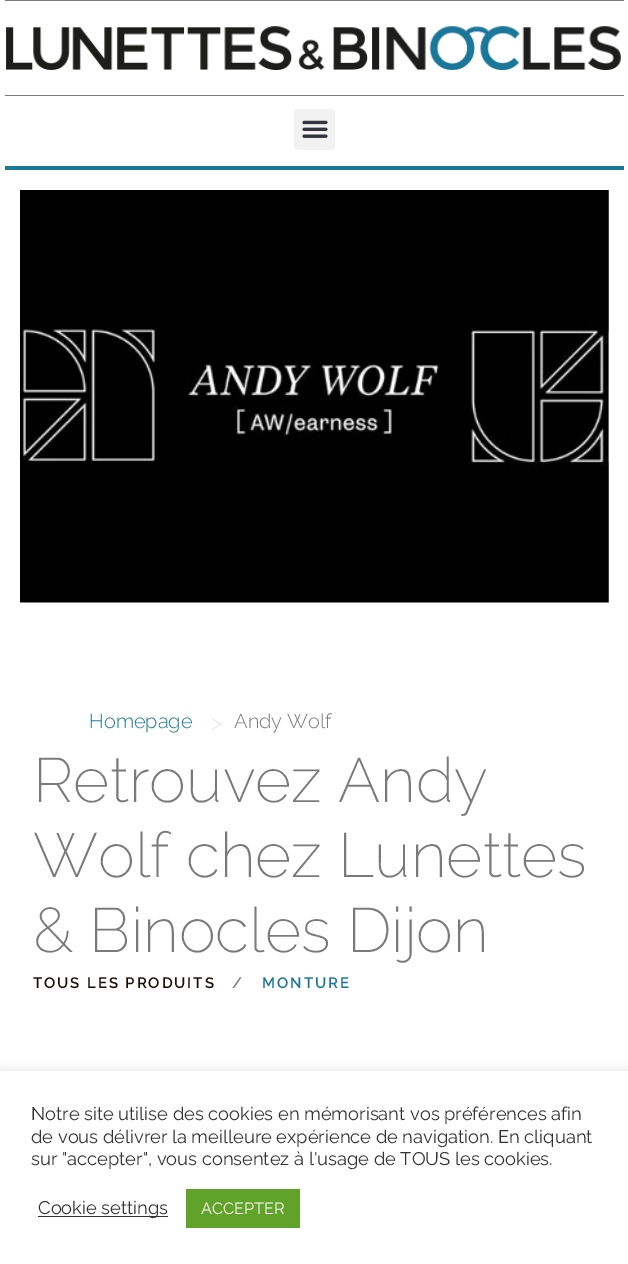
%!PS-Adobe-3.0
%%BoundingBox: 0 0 628 1264
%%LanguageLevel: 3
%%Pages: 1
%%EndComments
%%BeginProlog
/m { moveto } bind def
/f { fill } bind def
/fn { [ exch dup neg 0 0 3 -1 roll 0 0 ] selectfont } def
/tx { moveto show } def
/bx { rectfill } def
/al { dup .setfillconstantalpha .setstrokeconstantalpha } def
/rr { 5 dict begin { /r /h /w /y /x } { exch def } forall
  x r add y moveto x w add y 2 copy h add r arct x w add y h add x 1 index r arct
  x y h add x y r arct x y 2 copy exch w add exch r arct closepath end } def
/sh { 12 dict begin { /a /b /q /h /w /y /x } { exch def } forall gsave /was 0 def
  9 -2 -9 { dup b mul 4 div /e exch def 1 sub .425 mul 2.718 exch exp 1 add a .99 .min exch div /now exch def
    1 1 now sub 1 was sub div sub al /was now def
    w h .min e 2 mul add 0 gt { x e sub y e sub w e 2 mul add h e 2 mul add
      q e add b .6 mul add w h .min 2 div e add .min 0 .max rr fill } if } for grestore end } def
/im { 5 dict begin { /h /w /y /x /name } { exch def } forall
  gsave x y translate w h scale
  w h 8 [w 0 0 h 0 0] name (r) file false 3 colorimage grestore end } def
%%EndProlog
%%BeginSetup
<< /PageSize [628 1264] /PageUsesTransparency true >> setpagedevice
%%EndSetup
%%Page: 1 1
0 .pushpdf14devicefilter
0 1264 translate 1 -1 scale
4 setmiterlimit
1 setgray
0 0 628 1264 bx
0.478 setgray
5 0 619 1 bx
5 95 619 1 bx
(image0.raw) 6 26 615 44 im
0.102 0.467 0.6 setrgbcolor
5 166 619 4 bx
0.949 setgray
294 109 41 41 4 rr f
(image1.raw) 302 120 26 18 im
(image2.raw) 20 190 589 413 im
/Raleway-Light 20 fn
0.102 0.467 0.6 setrgbcolor
(Homepage) 89 728 tx
/Raleway-Thin 22 fn
0.8 setgray
(>) 211 730 tx
/Raleway-Light 20 fn
0.478 setgray
(Andy Wolf) 234 728 tx
/Raleway-ExtraLight 62.5 fn
(Retrouvez Andy) 33 802 tx
(Wolf chez Lunettes) 33 877 tx
(& Binocles Dijon) 33 952 tx
/Raleway-SemiBold 15 fn
0.11 0.059 0.039 setrgbcolor
33 988 m 1.9 0 (TOUS LES PRODUITS) ashow
0.478 setgray
232 988 m 1.9 0 (/) ashow
0.102 0.467 0.6 setrgbcolor
262 988 m 1.9 0 (MONTURE) ashow
0.675 0.671 0.671 setrgbcolor
0 1070 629 194 0 6 0.3 sh
1 setgray
0 1071 628 193 bx
/Raleway-Regular 18.3 fn
0.2 setgray
(Notre site utilise des cookies en mémorisant vos préférences afin) 31 1120 tx
(de vous délivrer la meilleure expérience de navigation. En cliquant) 31 1143 tx
(sur "accepter", vous consentez à l'usage de TOUS les cookies.) 31 1165 tx
38 1216 130 1 bx
(Cookie settings) 38 1214 tx
0.38 0.635 0.161 setrgbcolor
186 1189 114 39 bx
/Raleway-Regular 16.25 fn
1 setgray
(ACCEPTER) 201 1214 tx
.poppdf14devicefilter showpage
%%EOF
